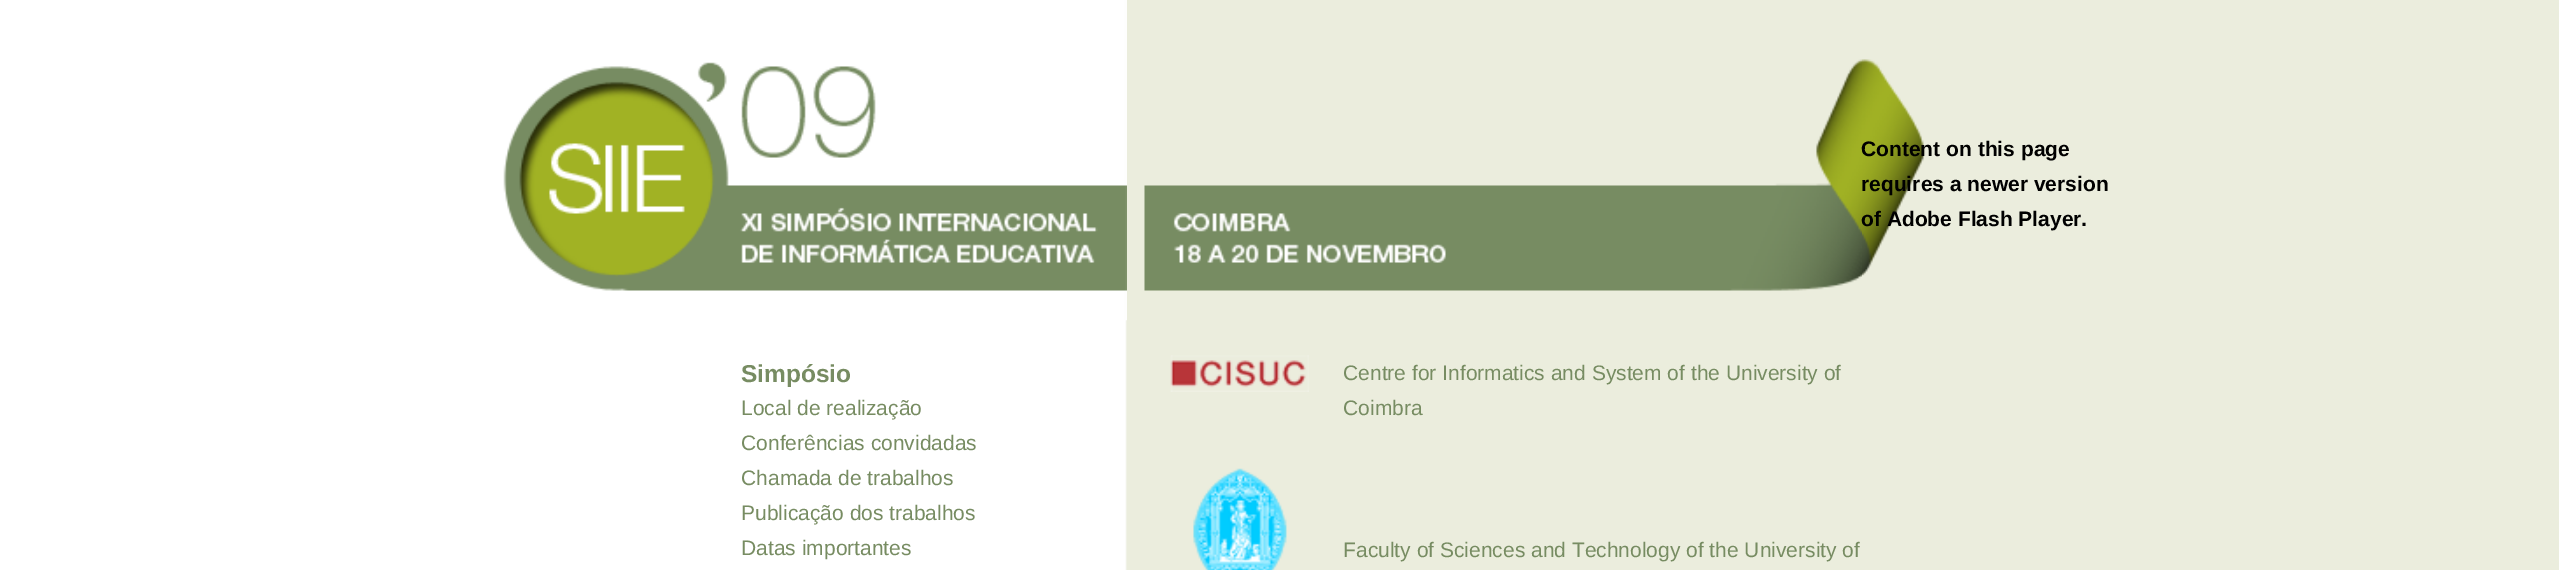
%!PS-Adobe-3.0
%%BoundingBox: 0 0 2559 570
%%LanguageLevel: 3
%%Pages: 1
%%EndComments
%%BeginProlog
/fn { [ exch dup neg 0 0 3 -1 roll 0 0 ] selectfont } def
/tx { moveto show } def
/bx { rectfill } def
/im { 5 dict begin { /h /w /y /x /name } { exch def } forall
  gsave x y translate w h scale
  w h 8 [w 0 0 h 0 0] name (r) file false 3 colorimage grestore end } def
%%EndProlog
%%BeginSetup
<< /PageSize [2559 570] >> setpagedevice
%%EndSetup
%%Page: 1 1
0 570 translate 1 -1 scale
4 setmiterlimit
1 setgray
0 0 2559 570 bx
(image0.raw) 1125 0 1434 570 im
(image1.raw) 503 0 624 321 im
(image2.raw) 1144 59 718 232 im
(image3.raw) 1862 59 64 217 im
/LiberationSans-Bold 21 fn
0 setgray
(Content on this page) 1861 156 tx
(requires a newer version) 1861 191 tx
(of Adobe Flash Player.) 1861 226 tx
/LiberationSans-Bold 24.5 fn
0.467 0.549 0.384 setrgbcolor
(Simpósio) 741 382 tx
/LiberationSans-Regular 21 fn
(Local de realização) 741 415 tx
(Conferências convidadas) 741 450 tx
(Chamada de trabalhos) 741 485 tx
(Publicação dos trabalhos) 741 520 tx
(Datas importantes) 741 555 tx
(image4.raw) 1170 355 139 37 im
(Centre for Informatics and System of the University of) 1343 380 tx
(Coimbra) 1343 415 tx
(image5.raw) 1193 468 94 102 im
(Faculty of Sciences and Technology of the University of) 1343 557 tx
showpage
%%EOF
